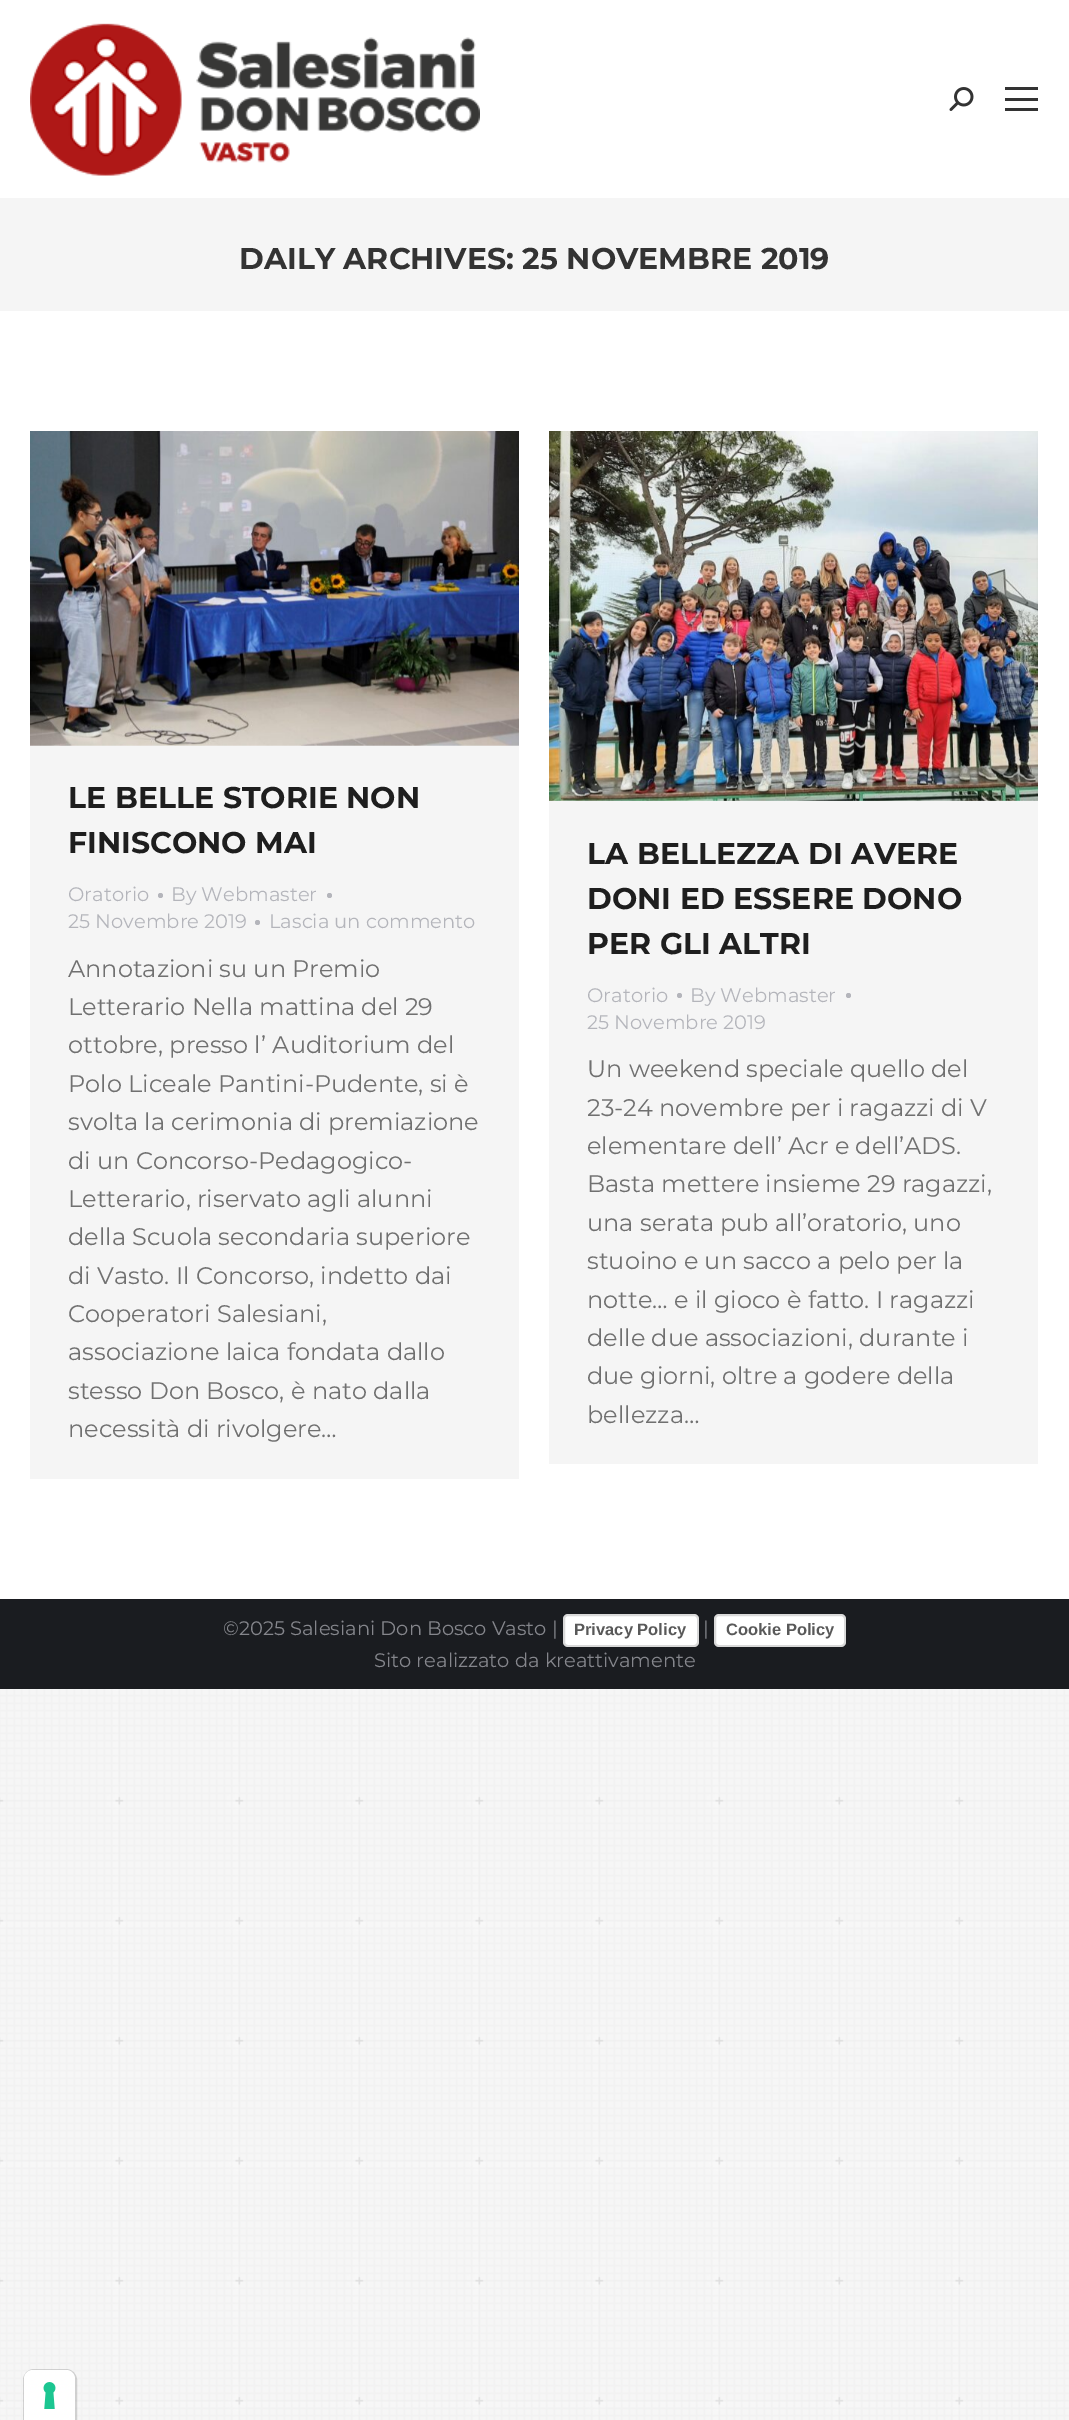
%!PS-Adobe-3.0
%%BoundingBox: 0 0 1069 2420
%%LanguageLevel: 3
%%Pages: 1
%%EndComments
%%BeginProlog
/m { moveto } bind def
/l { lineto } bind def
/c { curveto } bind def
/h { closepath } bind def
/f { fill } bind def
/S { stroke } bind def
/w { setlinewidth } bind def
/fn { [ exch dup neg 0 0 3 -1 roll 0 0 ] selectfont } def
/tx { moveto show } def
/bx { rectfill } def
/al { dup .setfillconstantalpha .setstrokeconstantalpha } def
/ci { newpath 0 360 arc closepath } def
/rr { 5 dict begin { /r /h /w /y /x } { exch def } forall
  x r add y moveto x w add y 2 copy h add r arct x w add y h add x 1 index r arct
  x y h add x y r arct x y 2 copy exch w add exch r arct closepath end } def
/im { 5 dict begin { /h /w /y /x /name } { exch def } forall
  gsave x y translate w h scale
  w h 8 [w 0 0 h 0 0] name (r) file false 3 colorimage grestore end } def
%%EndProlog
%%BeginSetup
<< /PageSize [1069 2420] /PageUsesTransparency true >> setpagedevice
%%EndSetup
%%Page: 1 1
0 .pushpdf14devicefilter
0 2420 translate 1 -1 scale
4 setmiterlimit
0.969 setgray
0 0 1069 2420 bx
(image0.raw) 0 1689 1069 731 im
1 setgray
0 0 1069 1599 bx
(image1.raw) 30 23 450 153 im
(image2.raw) 949 87 25 24 im
0.2 setgray
1005 87 33 3 bx
1005 98 33 3 bx
1005 108 33 3 bx
0.961 setgray
0 198 1069 113 bx
/Montserrat-Bold 30 fn
0.2 setgray
(DAILY ARCHIVES: 25 NOVEMBRE 2019) 239 269 tx
0.961 setgray
30 745 489 734 bx
(image3.raw) 30 431 489 315 im
0.118 setgray
(LE BELLE STORIE NON) 68 808 tx
(FINISCONO MAI) 68 853 tx
/Montserrat-Regular 19.5 fn
0.706 0.71 0.733 setrgbcolor
(Oratorio) 68 901 tx
160.5 895.5 2.5 ci f
(By Webmaster) 171 901 tx
329.5 895.5 2.5 ci f
(25 Novembre 2019) 68 928 tx
257.5 922.5 2.5 ci f
(Lascia un commento) 269 928 tx
/Montserrat-Regular 24 fn
0.439 setgray
(Annotazioni su un Premio) 68 977 tx
(Letterario Nella mattina del 29) 68 1015 tx
(ottobre, presso l’ Auditorium del) 68 1053 tx
(Polo Liceale Pantini-Pudente, si è) 68 1092 tx
(svolta la cerimonia di premiazione) 68 1130 tx
(di un Concorso-Pedagogico-) 68 1169 tx
(Letterario, riservato agli alunni) 68 1207 tx
(della Scuola secondaria superiore) 68 1245 tx
(di Vasto. Il Concorso, indetto dai) 68 1284 tx
(Cooperatori Salesiani,) 68 1322 tx
(associazione laica fondata dallo) 68 1360 tx
(stesso Don Bosco, è nato dalla) 68 1399 tx
(necessità di rivolgere…) 68 1437 tx
0.961 setgray
549 800 489 664 bx
(image4.raw) 549 431 489 370 im
/Montserrat-Bold 30 fn
0.118 setgray
(LA BELLEZZA DI AVERE) 587 864 tx
(DONI ED ESSERE DONO) 587 909 tx
(PER GLI ALTRI) 587 954 tx
/Montserrat-Regular 19.5 fn
0.706 0.71 0.733 setrgbcolor
(Oratorio) 587 1002 tx
679.5 995.5 2.5 ci f
(By Webmaster) 690 1002 tx
848.5 995.5 2.5 ci f
(25 Novembre 2019) 587 1029 tx
/Montserrat-Regular 24 fn
0.439 setgray
(Un weekend speciale quello del) 587 1077 tx
(23-24 novembre per i ragazzi di V) 587 1116 tx
(elementare dell’ Acr e dell’ADS.) 587 1154 tx
(Basta mettere insieme 29 ragazzi,) 587 1192 tx
(una serata pub all’oratorio, uno) 587 1231 tx
(stuoino e un sacco a pelo per la) 587 1269 tx
(notte… e il gioco è fatto. I ragazzi) 587 1308 tx
(delle due associazioni, durante i) 587 1346 tx
(due giorni, oltre a godere della) 587 1384 tx
(bellezza…) 587 1423 tx
0.102 0.11 0.125 setrgbcolor
0 1599 1069 90 bx
/Montserrat-Regular 19.5 fn
0.522 0.525 0.549 setrgbcolor
(©2025 Salesiani Don Bosco Vasto |) 223 1635 tx
1 setgray
563 1614 136 33 5 rr f
0.15 al
0 setgray
2 w
564 1615 134 31 4 rr S
/LiberationSans-Bold 16.5 fn
1 al
0.349 setgray
(Privacy Policy) 574 1635 tx
/Montserrat-Regular 19.5 fn
0.522 0.525 0.549 setrgbcolor
(|) 703 1635 tx
1 setgray
714 1614 132 33 5 rr f
0.15 al
0 setgray
715 1615 130 31 4 rr S
/LiberationSans-Bold 16.5 fn
1 al
0.349 setgray
(Cookie Policy) 726 1635 tx
/Montserrat-Regular 19.5 fn
0.522 0.525 0.549 setrgbcolor
(Sito realizzato da kreattivamente) 374 1667 tx
0.15 al
0 setgray
34 2370 m 66 2370 l 71.5 2370 76 2374.5 76 2380 c 76 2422 l 24 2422 l 24 2380 l 24 2374.5 28.5 2370 34 2370 c h S
1 al
1 setgray
33 2370 m 66 2370 l 71 2370 75 2374 75 2379 c 75 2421 l 24 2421 l 24 2379 l 24 2374 28 2370 33 2370 c h f
(image5.raw) 43 2382 13 27 im
.poppdf14devicefilter showpage
%%EOF
